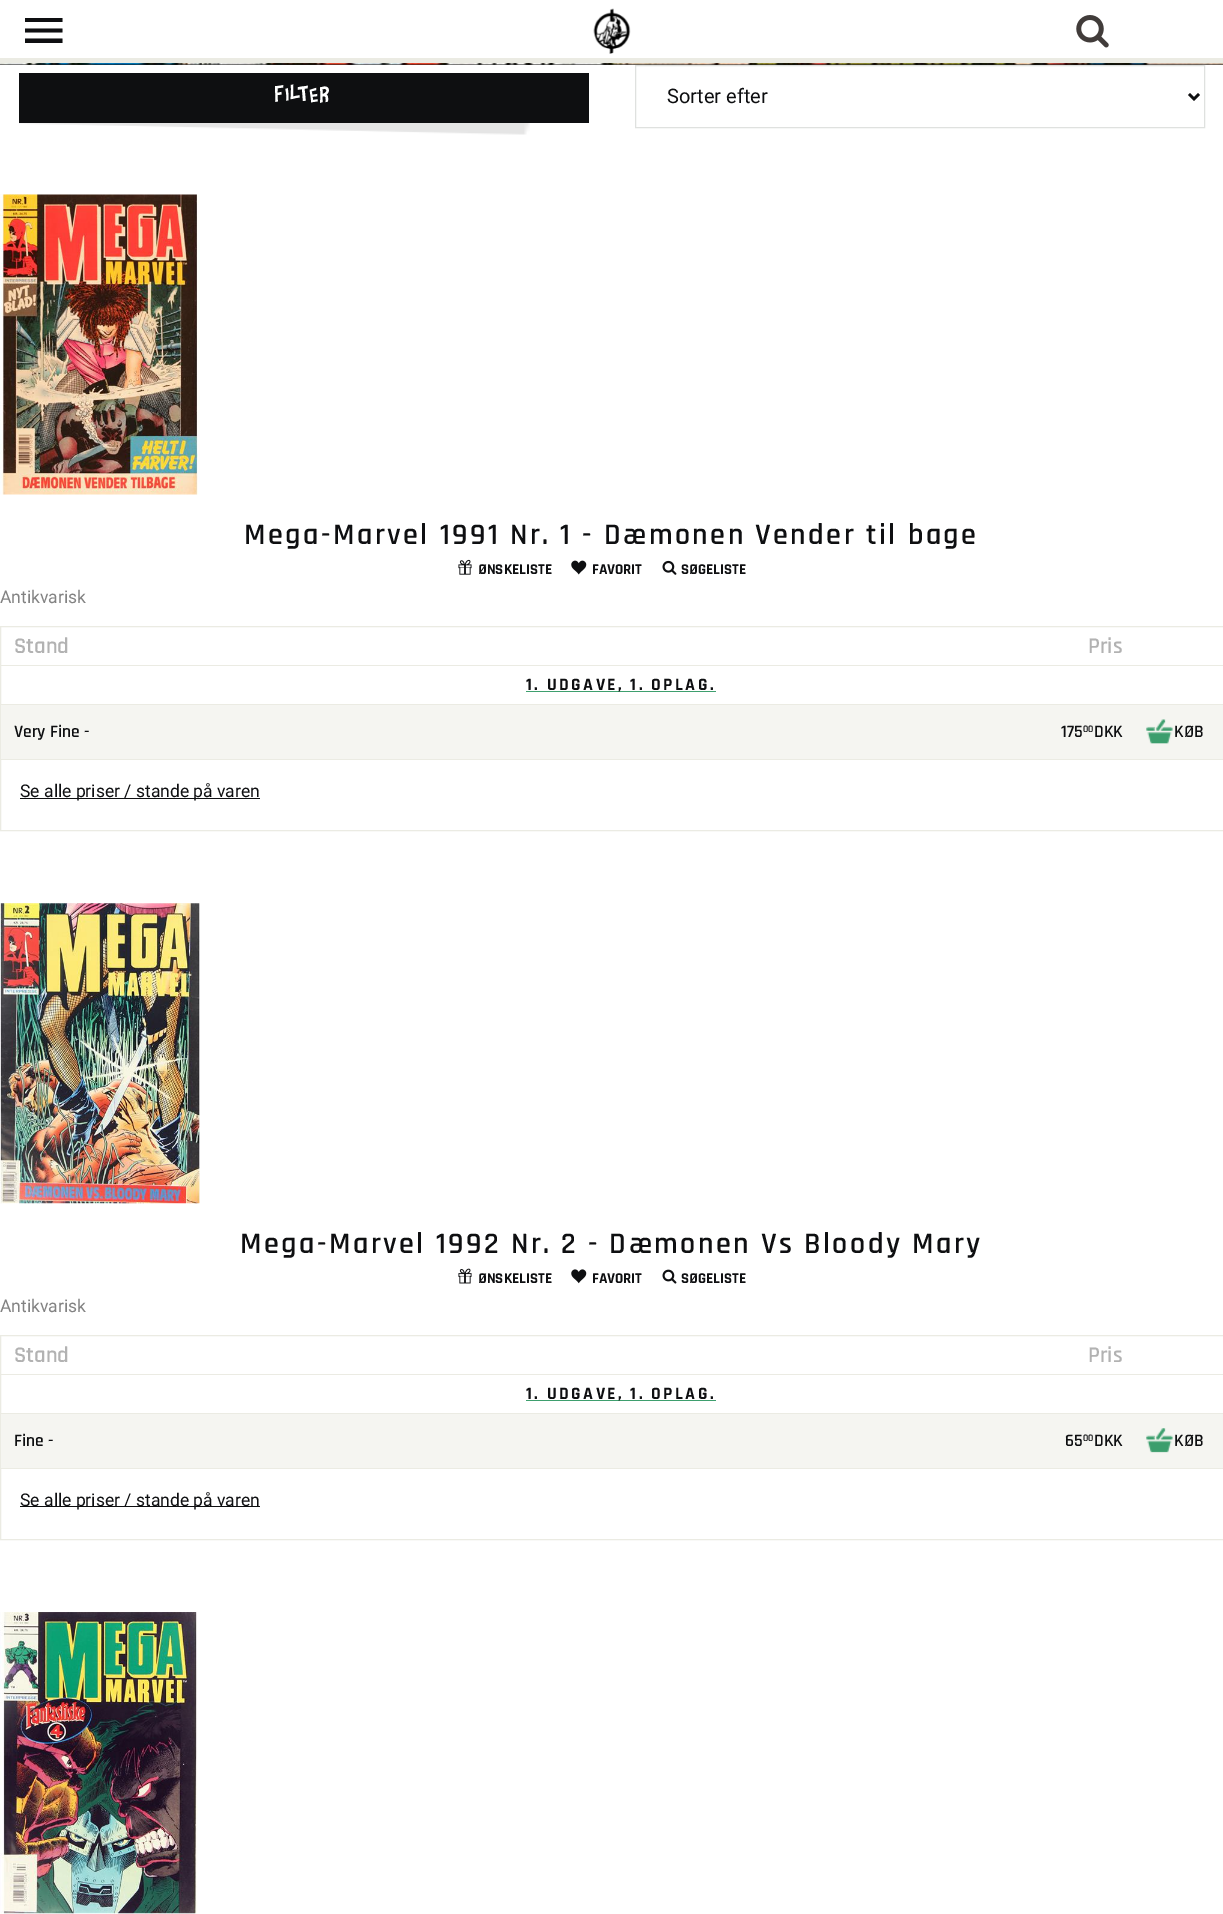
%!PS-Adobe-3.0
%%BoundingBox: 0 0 1223 1914
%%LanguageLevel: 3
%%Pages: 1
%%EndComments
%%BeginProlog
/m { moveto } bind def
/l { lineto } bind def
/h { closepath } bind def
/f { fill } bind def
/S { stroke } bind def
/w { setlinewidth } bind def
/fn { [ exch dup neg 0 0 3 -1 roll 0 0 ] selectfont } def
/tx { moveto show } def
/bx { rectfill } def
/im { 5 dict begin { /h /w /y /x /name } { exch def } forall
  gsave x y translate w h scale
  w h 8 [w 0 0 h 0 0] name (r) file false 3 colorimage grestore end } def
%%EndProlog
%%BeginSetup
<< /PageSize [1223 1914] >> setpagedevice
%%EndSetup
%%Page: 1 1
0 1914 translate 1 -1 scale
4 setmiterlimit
1 setgray
0 0 1223 1914 bx
0.922 0.922 0.89 setrgbcolor
0 58 1223 5 bx
0.055 0.059 0.067 setrgbcolor
25 18 m 62.5 18 l 62.5 22 l 25 22 l h 25 32.5 m 25 28.5 l 62.5 28.5 l 62.5 32.5 l h 25 43 m 25 38.5 l 62.5 38.5 l 62.5 43 l h f
(image0.raw) 593 8 38 46 im
(image1.raw) 1076 15 33 33 im
0 64 1223 1 bx
(image2.raw) 0 63 1223 2 im
(image3.raw) 19 123 511 12 im
19 73 570 50 bx
/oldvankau-Regular 22.5 fn
1 setgray
275 103 m 2.5 0 (Filter) ashow
0.875 0.882 0.875 setrgbcolor
635.5 65.5 569 62 rectstroke
0.055 0.059 0.067 setrgbcolor
2.5 w
1189 94 m 1194 99 l 1199 94 l S
/Roboto-Regular 20 fn
(Sorter efter) 667 103 tx
(image4.raw) 0 194 200 301 im
/Rajdhani-SemiBold 30 fn
244 544 m 2.5 0 (Mega-Marvel 1991 Nr. 1 - Dæmonen Vender til bage) ashow
(image5.raw) 458 559 14 16 im
/Rajdhani-Bold 15 fn
(ØNSKELISTE) 478 574 tx
(image6.raw) 571 560 16 15 im
(FAVORIT) 592 574 tx
(image7.raw) 662 560 15 15 im
(SØGELISTE) 681 574 tx
/Roboto-Regular 17.5 fn
0.51 setgray
(Antikvarisk) 0 603 tx
0.922 0.922 0.89 setrgbcolor
1 w
0.5 626.5 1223 204 rectstroke
1 665 1222 1 bx
/Rajdhani-SemiBold 22.5 fn
0.698 setgray
(Stand) 14 653 tx
(Pris) 1088 653 tx
0.243 0.624 0.431 setrgbcolor
526 691 190 1 bx
/Rajdhani-Bold 17.5 fn
0.055 0.059 0.067 setrgbcolor
526 690 m 2.5 0 (1. UDGAVE, 1. OPLAG.) ashow
0.922 0.922 0.89 setrgbcolor
1 759 1222 1 bx
0.961 0.961 0.945 setrgbcolor
1 705 1222 54 bx
/Rajdhani-SemiBold 17.5 fn
0.055 0.059 0.067 setrgbcolor
(Very Fine -) 14 737 tx
(175) 1061 737 tx
/Rajdhani-SemiBold 10 fn
(00) 1083 732 tx
/Rajdhani-SemiBold 17.5 fn
(DKK) 1094 737 tx
0.922 0.922 0.89 setrgbcolor
1 704 1222 1 bx
(image8.raw) 1146 719 27 25 im
0.055 0.059 0.067 setrgbcolor
(KØB) 1174 737 tx
20 798 240 1 bx
/Roboto-Regular 17.5 fn
(Se alle priser / stande på varen) 20 797 tx
(image9.raw) 0 903 200 301 im
/Rajdhani-SemiBold 30 fn
240 1253 m 2.5 0 (Mega-Marvel 1992 Nr. 2 - Dæmonen Vs Bloody Mary) ashow
(image10.raw) 458 1268 14 16 im
/Rajdhani-Bold 15 fn
(ØNSKELISTE) 478 1283 tx
(image11.raw) 571 1269 16 15 im
(FAVORIT) 592 1283 tx
(image12.raw) 662 1269 15 15 im
(SØGELISTE) 681 1283 tx
/Roboto-Regular 17.5 fn
0.51 setgray
(Antikvarisk) 0 1312 tx
0.922 0.922 0.89 setrgbcolor
0.5 1335.5 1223 204 rectstroke
1 1374 1222 1 bx
/Rajdhani-SemiBold 22.5 fn
0.698 setgray
(Stand) 14 1362 tx
(Pris) 1088 1362 tx
0.243 0.624 0.431 setrgbcolor
526 1400 190 1 bx
/Rajdhani-Bold 17.5 fn
0.055 0.059 0.067 setrgbcolor
526 1399 m 2.5 0 (1. UDGAVE, 1. OPLAG.) ashow
0.922 0.922 0.89 setrgbcolor
1 1468 1222 1 bx
0.961 0.961 0.945 setrgbcolor
1 1414 1222 54 bx
/Rajdhani-SemiBold 17.5 fn
0.055 0.059 0.067 setrgbcolor
(Fine -) 14 1446 tx
(65) 1065 1446 tx
/Rajdhani-SemiBold 10 fn
(00) 1083 1441 tx
/Rajdhani-SemiBold 17.5 fn
(DKK) 1094 1446 tx
0.922 0.922 0.89 setrgbcolor
1 1413 1222 1 bx
(image13.raw) 1146 1428 27 25 im
0.055 0.059 0.067 setrgbcolor
(KØB) 1174 1446 tx
20 1506 240 1 bx
/Roboto-Regular 17.5 fn
(Se alle priser / stande på varen) 20 1506 tx
(image14.raw) 0 1612 198 302 im
showpage
%%EOF
